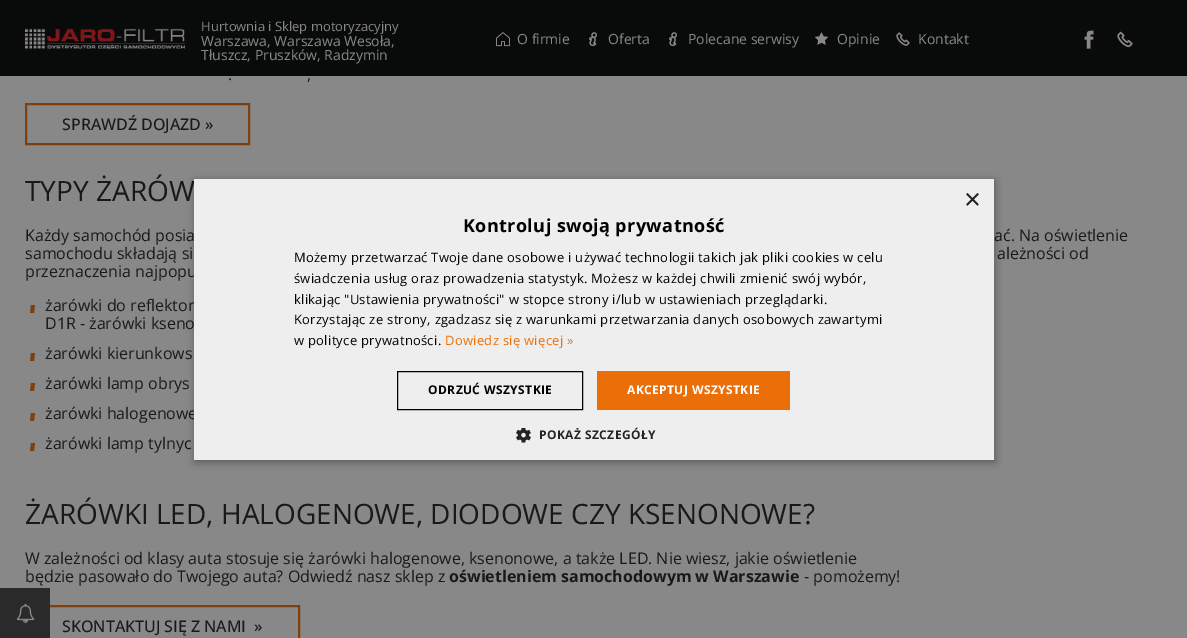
%!PS-Adobe-3.0
%%BoundingBox: 0 0 1187 638
%%LanguageLevel: 3
%%Pages: 1
%%EndComments
%%BeginProlog
/m { moveto } bind def
/l { lineto } bind def
/h { closepath } bind def
/f { fill } bind def
/w { setlinewidth } bind def
/fn { [ exch dup neg 0 0 3 -1 roll 0 0 ] selectfont } def
/tx { moveto show } def
/bx { rectfill } def
/al { dup .setfillconstantalpha .setstrokeconstantalpha } def
/rr { 5 dict begin { /r /h /w /y /x } { exch def } forall
  x r add y moveto x w add y 2 copy h add r arct x w add y h add x 1 index r arct
  x y h add x y r arct x y 2 copy exch w add exch r arct closepath end } def
/sh { 12 dict begin { /a /b /q /h /w /y /x } { exch def } forall gsave /was 0 def
  9 -2 -9 { dup b mul 4 div /e exch def 1 sub .425 mul 2.718 exch exp 1 add a .99 .min exch div /now exch def
    1 1 now sub 1 was sub div sub al /was now def
    w h .min e 2 mul add 0 gt { x e sub y e sub w e 2 mul add h e 2 mul add
      q e add b .6 mul add w h .min 2 div e add .min 0 .max rr fill } if } for grestore end } def
/im { 5 dict begin { /h /w /y /x /name } { exch def } forall
  gsave x y translate w h scale
  w h 8 [w 0 0 h 0 0] name (r) file false 3 colorimage grestore end } def
%%EndProlog
%%BeginSetup
<< /PageSize [1187 638] /PageUsesTransparency true >> setpagedevice
%%EndSetup
%%Page: 1 1
0 .pushpdf14devicefilter
0 638 translate 1 -1 scale
4 setmiterlimit
0.533 setgray
0 0 1187 638 bx
0.035 0.039 0.039 setrgbcolor
0 0 1187 76 bx
(image0.raw) 25 28 160 22 im
/OpenSans-Regular 13 fn
0.533 setgray
(Hurtownia i Sklep motoryzacyjny) 201 31 tx
/OpenSans-Regular 14 fn
(Warszawa, Warszawa Wesoła,) 201 46 tx
(Tłuszcz, Pruszków, Radzymin) 201 60 tx
(image1.raw) 496 32 14 15 im
(O firmie) 517 44 tx
(image2.raw) 589 32 8 14 im
(Oferta) 608 44 tx
(image2.raw) 669 32 8 14 im
(Polecane serwisy) 688 44 tx
(image3.raw) 815 32 13 13 im
(Opinie) 837 44 tx
(image4.raw) 896 32 14 14 im
(Kontakt) 918 44 tx
(image5.raw) 1084 30 10 19 im
(image6.raw) 1117 31 16 17 im
/OpenSans-Regular 16 fn
0.102 0.094 0.098 setrgbcolor
(.) 228 80 tx
(,) 307 80 tx
0.494 0.251 0.051 setrgbcolor
2 w
26 104 223 40 rectstroke
/OpenSans-Medium 16 fn
0.102 0.094 0.098 setrgbcolor
(SPRAWDŹ DOJAZD ») 62 130 tx
/OpenSans-Regular 28 fn
(TYPY ŻARÓW) 25 201 tx
/OpenSans-Regular 16 fn
(Każdy samochód posia) 25 241 tx
(ać. Na oświetlenie) 994 241 tx
(samochodu składają si) 25 259 tx
(ależności od) 997 259 tx
(przeznaczenia najpopu) 25 277 tx
0.494 0.251 0.051 setrgbcolor
31 305 m 30 313 l 34 313 l 35 305 l h f
0.102 0.094 0.098 setrgbcolor
(żarówki do reflektor) 45 311 tx
(D1R - żarówki kseno) 45 329 tx
0.494 0.251 0.051 setrgbcolor
31 353 m 30 361 l 34 361 l 35 353 l h f
0.102 0.094 0.098 setrgbcolor
(żarówki kierunkows) 45 359 tx
0.494 0.251 0.051 setrgbcolor
31 383 m 30 391 l 34 391 l 35 383 l h f
0.102 0.094 0.098 setrgbcolor
(żarówki lamp obrys) 45 389 tx
0.494 0.251 0.051 setrgbcolor
31 413 m 30 421 l 34 421 l 35 413 l h f
0.102 0.094 0.098 setrgbcolor
(żarówki halogenowe) 45 419 tx
0.494 0.251 0.051 setrgbcolor
31 443 m 30 451 l 34 451 l 35 443 l h f
0.102 0.094 0.098 setrgbcolor
(żarówki lamp tylnyc) 45 449 tx
/OpenSans-Regular 28 fn
(ŻARÓWKI LED, HALOGENOWE, DIODOWE CZY KSENONOWE?) 25 524 tx
/OpenSans-Regular 16 fn
(W zależności od klasy auta stosuje się żarówki halogenowe, ksenonowe, a także LED. Nie wiesz, jakie oświetlenie) 25 564 tx
(będzie pasowało do Twojego auta? Odwiedź nasz sklep z) 25 582 tx
/OpenSans-Bold 16 fn
(oświetleniem samochodowym w Warszawie) 449 582 tx
/OpenSans-Regular 16 fn
(- pomożemy!) 804 582 tx
0.494 0.251 0.051 setrgbcolor
26 606 273 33 rectstroke
/OpenSans-Medium 16 fn
0.102 0.094 0.098 setrgbcolor
(SKONTAKTUJ SIĘ Z NAMI  ») 62 632 tx
0.165 setgray
0 588 50 50 bx
(image7.raw) 16 603 19 20 im
0 setgray
195 181 800 281 0 4 0.35 sh
0.933 setgray
194 179 800 281 bx
/LiberationSans-Regular 29 fn
0.141 setgray
(×) 964 209 tx
/OpenSans-Bold 18 fn
0 setgray
463 232 m 0.4 0 (Kontroluj swoją prywatność) ashow
/OpenSans-Regular 13 fn
294 262 m 0.3 0 (Możemy przetwarzać Twoje dane osobowe i używać technologii takich jak pliki cookies w celu) ashow
294 283 m 0.3 0 (świadczenia usług oraz prowadzenia statystyk. Możesz w każdej chwili zmienić swój wybór,) ashow
294 304 m 0.3 0 (klikając "Ustawienia prywatności" w stopce strony i/lub w ustawieniach przeglądarki.) ashow
294 324 m 0.3 0 (Korzystając ze strony, zgadzasz się z warunkami przetwarzania danych osobowych zawartymi) ashow
294 345 m 0.3 0 (w polityce prywatności.) ashow
0.918 0.435 0.031 setrgbcolor
445 345 m 0.3 0 (Dowiedz się więcej ») ashow
0 setgray
1 w
397.5 371.5 185 38 rectstroke
/OpenSans-Bold 12 fn
428 394 m 0.4 0 (ODRZUĆ WSZYSTKIE) ashow
0.918 0.435 0.031 setrgbcolor
597 371 193 39 bx
1 setgray
627 394 m 0.4 0 (AKCEPTUJ WSZYSTKIE) ashow
(image8.raw) 516 428 15 15 im
0.141 setgray
539 439 m 0.4 0 (POKAŻ SZCZEGÓŁY) ashow
.poppdf14devicefilter showpage
%%EOF
